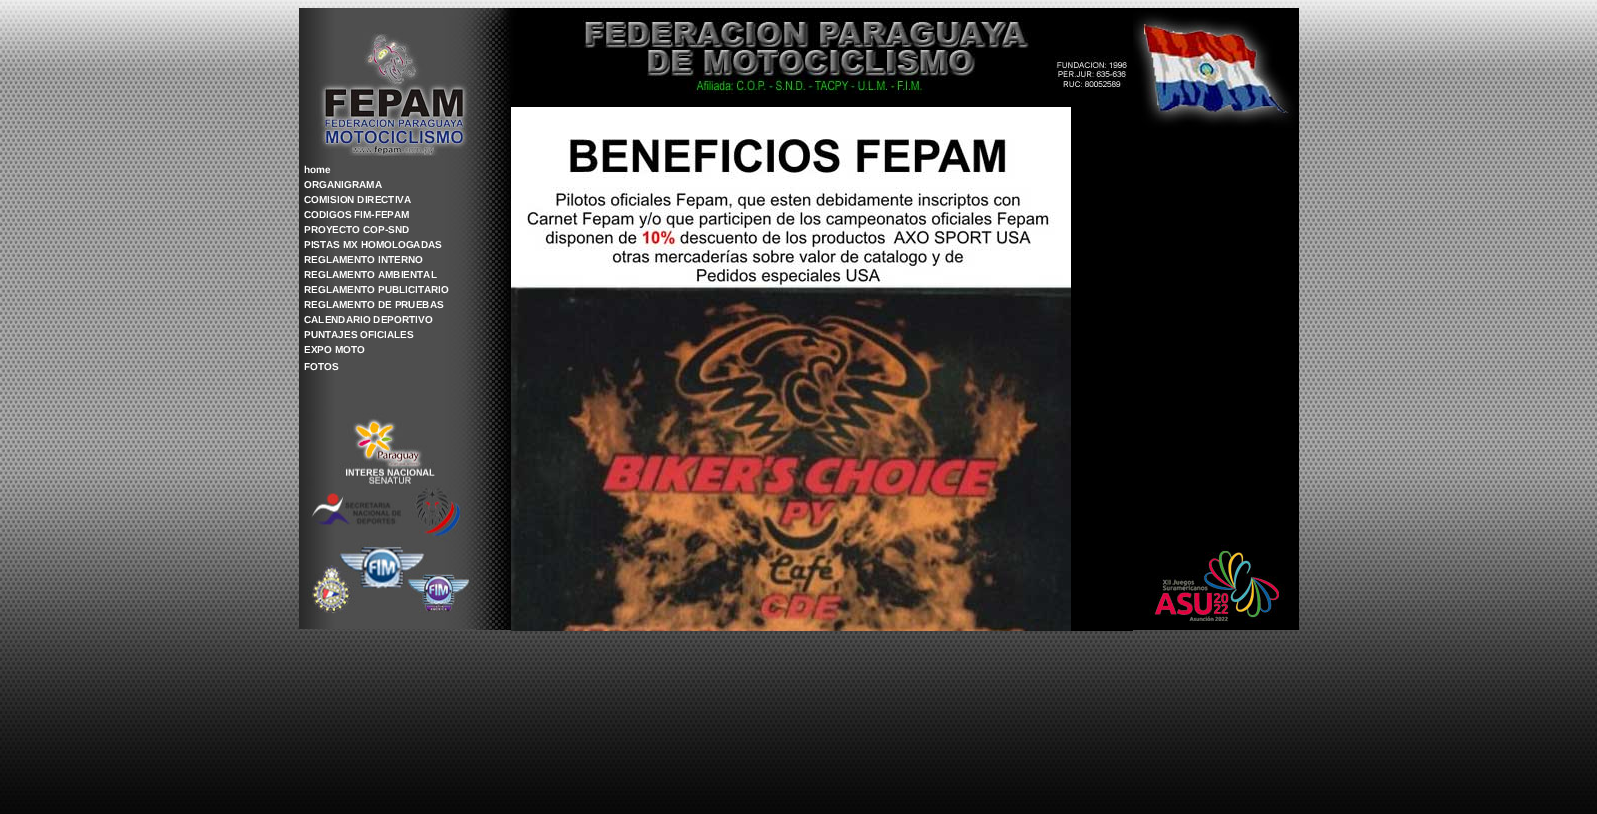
%!PS-Adobe-3.0
%%BoundingBox: 0 0 1597 814
%%LanguageLevel: 3
%%Pages: 1
%%EndComments
%%BeginProlog
/fn { [ exch dup neg 0 0 3 -1 roll 0 0 ] selectfont } def
/tx { moveto show } def
/bx { rectfill } def
/im { 5 dict begin { /h /w /y /x /name } { exch def } forall
  gsave x y translate w h scale
  w h 8 [w 0 0 h 0 0] name (r) file false 3 colorimage grestore end } def
%%EndProlog
%%BeginSetup
<< /PageSize [1597 814] >> setpagedevice
%%EndSetup
%%Page: 1 1
0 814 translate 1 -1 scale
4 setmiterlimit
1 setgray
0 0 1597 814 bx
(image0.raw) 0 0 1597 814 im
(image1.raw) 299 8 177 374 im
/LiberationSans-Bold 10 fn
(home) 304 173 tx
(ORGANIGRAMA) 304 188 tx
(COMISION DIRECTIVA) 304 203 tx
(CODIGOS FIM-FEPAM) 304 218 tx
(PROYECTO COP-SND) 304 233 tx
(PISTAS MX HOMOLOGADAS) 304 248 tx
(REGLAMENTO INTERNO) 304 263 tx
(REGLAMENTO AMBIENTAL) 304 278 tx
(REGLAMENTO PUBLICITARIO) 304 293 tx
(REGLAMENTO DE PRUEBAS) 304 308 tx
(CALENDARIO DEPORTIVO) 304 323 tx
(PUNTAJES OFICIALES) 304 338 tx
(EXPO MOTO) 304 353 tx
(FOTOS) 304 370 tx
(image2.raw) 299 382 177 247 im
(image3.raw) 476 8 35 622 im
(image4.raw) 511 8 622 86 im
(image5.raw) 1133 8 166 622 im
(image6.raw) 511 94 622 537 im
showpage
%%EOF
